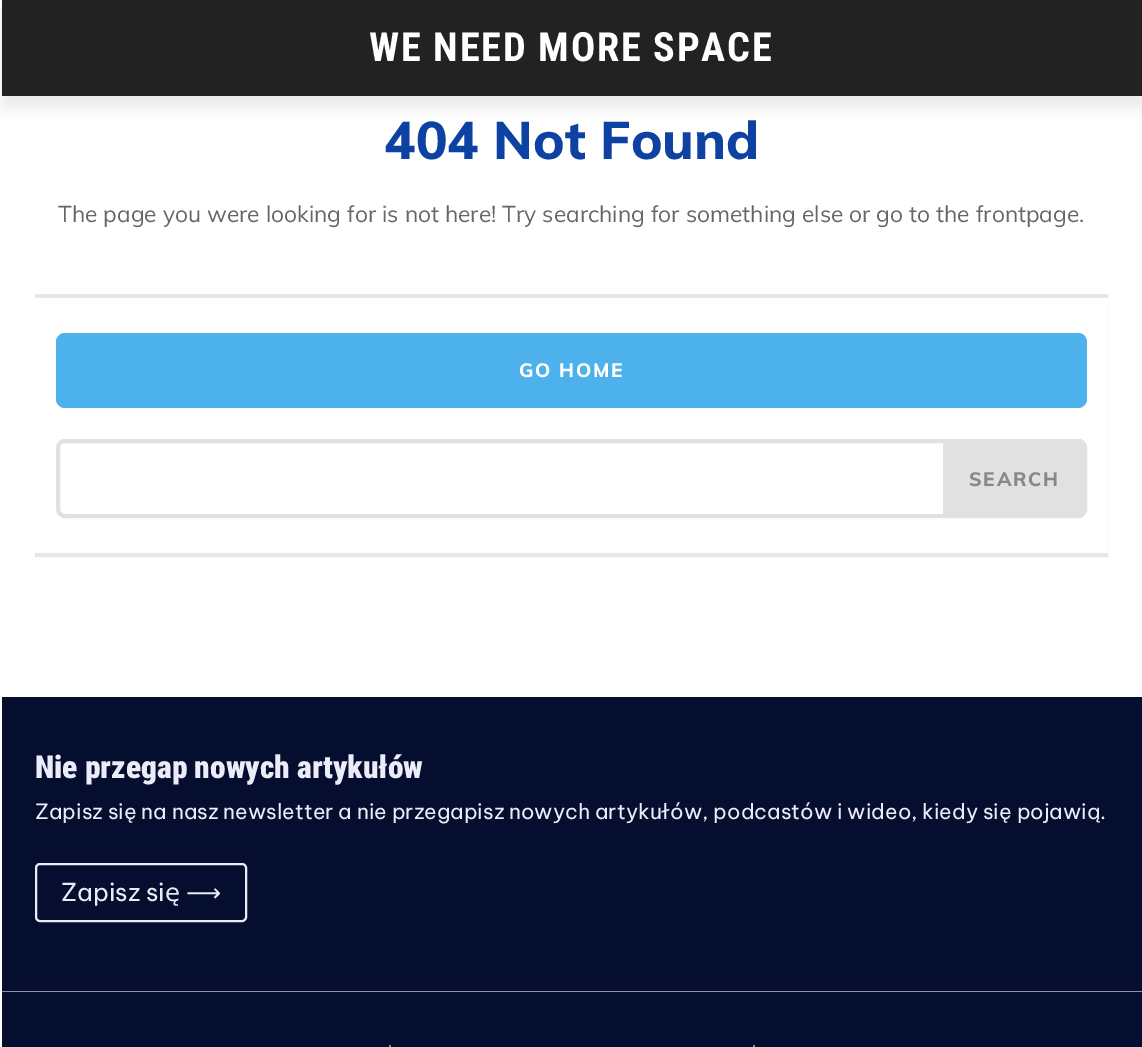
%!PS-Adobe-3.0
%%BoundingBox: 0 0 1142 1047
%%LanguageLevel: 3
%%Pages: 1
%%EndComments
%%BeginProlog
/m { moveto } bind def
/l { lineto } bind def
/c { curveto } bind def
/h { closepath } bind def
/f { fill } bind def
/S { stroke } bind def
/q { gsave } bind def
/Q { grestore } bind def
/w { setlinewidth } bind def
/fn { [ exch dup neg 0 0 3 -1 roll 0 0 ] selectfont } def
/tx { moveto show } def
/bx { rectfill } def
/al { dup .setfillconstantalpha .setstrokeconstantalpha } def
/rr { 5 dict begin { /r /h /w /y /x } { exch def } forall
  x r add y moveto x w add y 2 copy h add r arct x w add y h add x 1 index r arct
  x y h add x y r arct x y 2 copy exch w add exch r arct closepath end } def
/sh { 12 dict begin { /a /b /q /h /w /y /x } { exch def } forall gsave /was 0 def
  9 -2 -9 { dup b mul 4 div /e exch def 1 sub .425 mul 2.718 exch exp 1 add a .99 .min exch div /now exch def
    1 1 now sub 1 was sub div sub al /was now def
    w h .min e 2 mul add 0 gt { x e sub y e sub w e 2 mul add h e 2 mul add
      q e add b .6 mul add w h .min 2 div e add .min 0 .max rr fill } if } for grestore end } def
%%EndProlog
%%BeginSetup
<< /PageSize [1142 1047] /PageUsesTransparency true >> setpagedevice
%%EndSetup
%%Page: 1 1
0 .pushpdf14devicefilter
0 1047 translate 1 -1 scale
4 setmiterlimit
1 setgray
0 0 1142 1047 bx
0.133 setgray
2 0 1140 96 bx
q
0 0 m 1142 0 l 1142 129 l 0 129 l h 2 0 m 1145 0 l 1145 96 l 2 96 l h eoclip newpath
0 setgray
2 11 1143 96 0 7 0.08 sh
Q
/RobotoCondensed-Bold 40.25 fn
1 setgray
369 61 m 1.75 0 (WE NEED MORE SPACE) ashow
/Muli-ExtraBold 52.5 fn
0.051 0.259 0.635 setrgbcolor
(404 Not Found) 384 159 tx
/Muli-Regular 22.75 fn
0.4 setgray
(The page you were looking for is not here! Try searching for something else or go to the frontpage.) 58 222 tx
0.902 setgray
4 w
37 296 1069 259 rectstroke
1 setgray
35 298 1073 255 bx
0.302 0.698 0.925 setrgbcolor
56 333 1031 75 9 rr f
/Muli-ExtraBold 19.25 fn
1 setgray
519 377 m 1.75 0 (GO HOME) ashow
0.882 setgray
58 441 1027 75 7 rr S
943 439 m 1078 439 l 1083 439 1087 443 1087 448 c 1087 509 l 1087 514 1083 518 1078 518 c 943 518 l h f
0.533 setgray
969 486 m 1.75 0 (SEARCH) ashow
0.024 0.055 0.184 setrgbcolor
2 697 1140 294 bx
0.569 0.569 0.631 setrgbcolor
2 991 1140 1 bx
/RobotoCondensed-Black 31.5 fn
0.918 0.925 0.973 setrgbcolor
(Nie przegap nowych artykułów) 35 778 tx
/BeVietnamPro-Regular 21 fn
(Zapisz się na nasz newsletter a nie przegapisz nowych artykułów, podcastów i wideo, kiedy się pojawią.) 35 819 tx
2 w
36 864 210 57 4 rr S
/BeVietnamPro-Regular 24.5 fn
(Zapisz si) 61 901 tx
/DejaVuSans-Regular 24.5 fn
(ę) 165 901 tx
(⟶) 186 901 tx
0.024 0.055 0.184 setrgbcolor
2 992 1140 55 bx
0.569 0.569 0.631 setrgbcolor
753 1045 2 2 bx
389 1045 2 2 bx
.poppdf14devicefilter showpage
%%EOF
